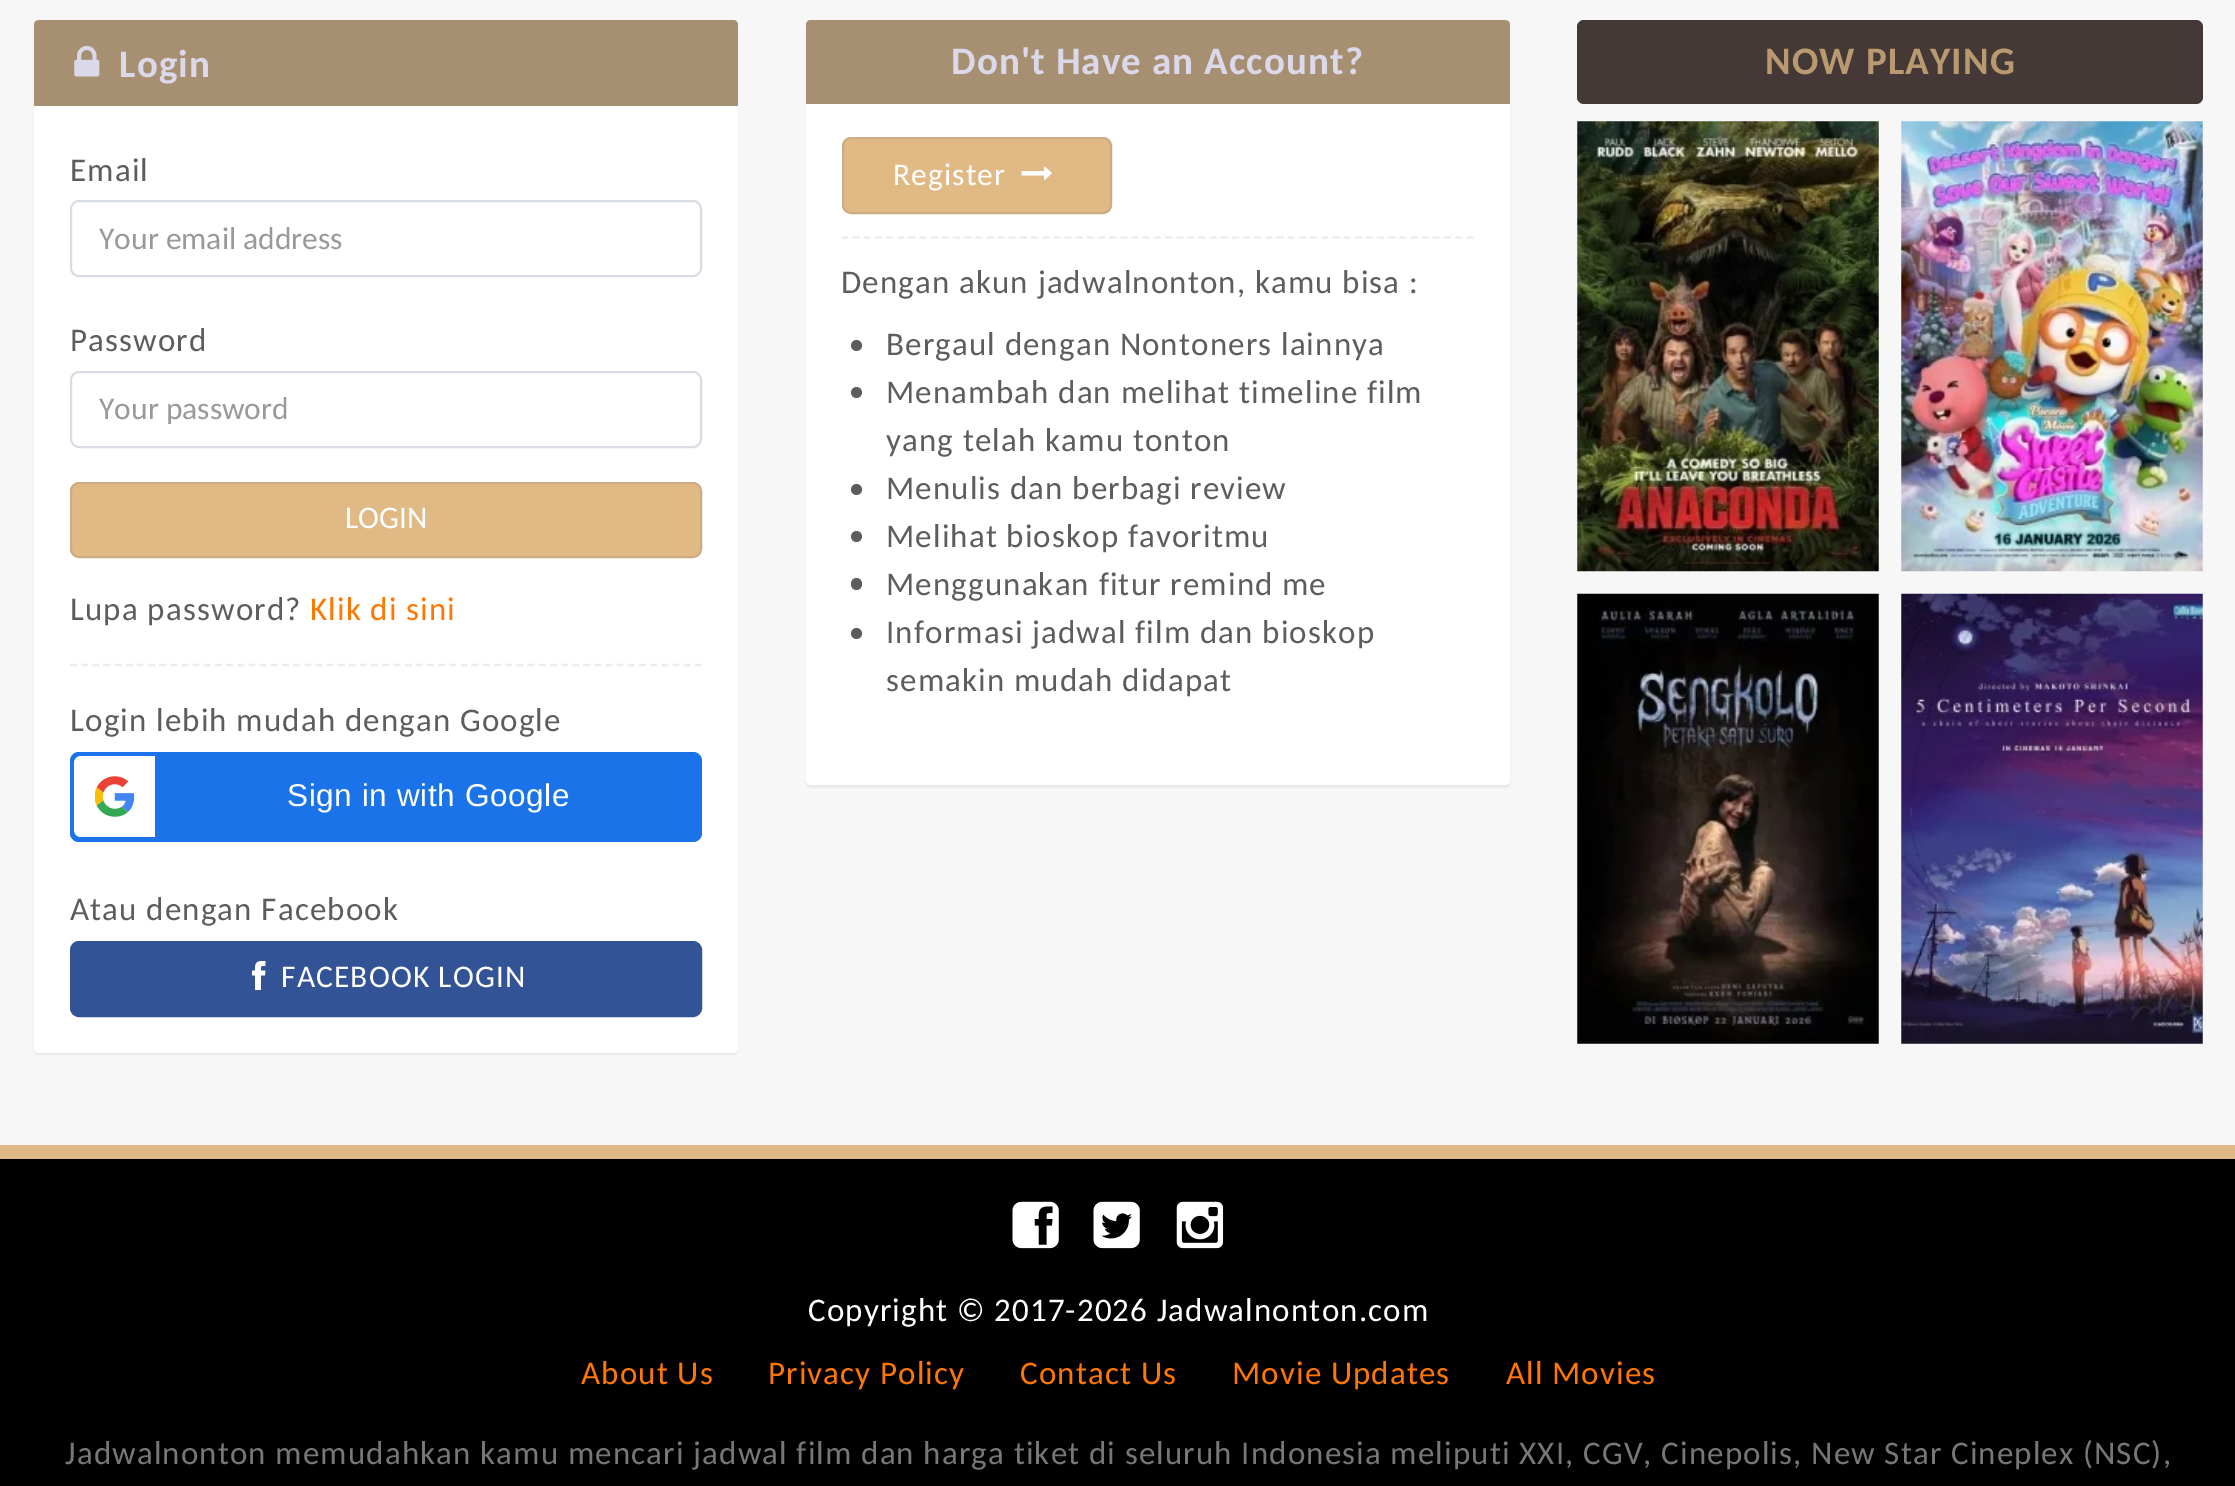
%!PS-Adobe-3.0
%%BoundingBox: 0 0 2235 1486
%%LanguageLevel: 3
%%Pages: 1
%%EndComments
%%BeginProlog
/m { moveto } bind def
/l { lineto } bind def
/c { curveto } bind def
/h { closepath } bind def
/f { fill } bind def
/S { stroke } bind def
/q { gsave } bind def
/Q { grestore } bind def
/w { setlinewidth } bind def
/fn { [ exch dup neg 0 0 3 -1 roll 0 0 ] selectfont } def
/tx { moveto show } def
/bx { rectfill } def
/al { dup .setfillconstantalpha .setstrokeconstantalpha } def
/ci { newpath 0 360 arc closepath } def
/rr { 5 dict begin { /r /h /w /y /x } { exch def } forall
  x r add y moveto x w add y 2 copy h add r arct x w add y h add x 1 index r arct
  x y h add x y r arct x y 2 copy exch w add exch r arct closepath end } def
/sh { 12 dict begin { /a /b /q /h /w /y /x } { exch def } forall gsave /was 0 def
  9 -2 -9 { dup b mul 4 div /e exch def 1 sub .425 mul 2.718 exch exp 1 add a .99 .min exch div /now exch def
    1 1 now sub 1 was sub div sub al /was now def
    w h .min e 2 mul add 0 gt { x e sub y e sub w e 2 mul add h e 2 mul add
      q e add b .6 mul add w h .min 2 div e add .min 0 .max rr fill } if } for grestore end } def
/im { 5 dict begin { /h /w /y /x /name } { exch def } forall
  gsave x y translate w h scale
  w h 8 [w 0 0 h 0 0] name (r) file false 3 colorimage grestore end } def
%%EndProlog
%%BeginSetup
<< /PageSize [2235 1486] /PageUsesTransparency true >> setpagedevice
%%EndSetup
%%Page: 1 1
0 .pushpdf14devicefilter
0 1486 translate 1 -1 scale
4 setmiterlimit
0.969 setgray
0 0 2235 1486 bx
0 setgray
34 23 704 1032 5 1 0.05 sh
1 setgray
34 20 704 1033 5 rr f
0.655 0.561 0.443 setrgbcolor
39 20 m 733 20 l 736 20 738 22 738 25 c 738 106 l 34 106 l 34 25 l 34 22 36 20 39 20 c h f
(image0.raw) 74 45 26 32 im
/Carlito-Bold 39 fn
0.859 0.847 0.914 setrgbcolor
119 77 m 1.12 0 (Login) ashow
/Carlito-Regular 33 fn
0.365 setgray
70 181 m 1.12 0 (Email) ashow
0.847 0.867 0.898 setrgbcolor
2 w
71 201 630 75 8 rr S
/Carlito-Regular 31.5 fn
0.6 setgray
(Your email address) 99 249 tx
/Carlito-Regular 33 fn
0.365 setgray
70 351 m 1.12 0 (Password) ashow
0.847 0.867 0.898 setrgbcolor
71 372 630 75 8 rr S
/Carlito-Regular 31.5 fn
0.6 setgray
(Your password) 99 419 tx
0.882 0.725 0.522 setrgbcolor
71 483 630 74 8 rr q f Q
0.808 0.675 0.506 setrgbcolor
S
1 setgray
(LOGIN) 345 528 tx
/Carlito-Regular 33 fn
0.365 setgray
70 620 m 1.12 0 (Lupa password?) ashow
1 0.463 0 setrgbcolor
310 620 m 1.12 0 (Klik di sini) ashow
0.918 0.929 0.937 setrgbcolor
2.2 w
[6.75 4.41] 0 setdash
70 665 m 702 665 l S
0.365 setgray
70 731 m 1.12 0 (Login lebih mudah dengan Google) ashow
0.102 0.451 0.91 setrgbcolor
70 752 632 90 9 rr f
1 setgray
81 756 m 155 756 l 155 837 l 81 837 l 77 837 74 834 74 830 c 74 763 l 74 759 77 756 81 756 c h f
(image1.raw) 95 776 40 41 im
/LiberationSans-Regular 31.5 fn
287 806 m 0.6 0 (Sign in with Google) ashow
/Carlito-Regular 33 fn
0.365 setgray
70 920 m 1.12 0 (Atau dengan Facebook) ashow
0.2 0.325 0.592 setrgbcolor
71 942 630 74 8 rr q f Q
2 w
[] 0 setdash
S
(image2.raw) 252 961 14 29 im
/Carlito-Regular 31.5 fn
1 setgray
281 987 m 1.12 0 (FACEBOOK LOGIN) ashow
0 setgray
806 23 704 765 5 1 0.05 sh
1 setgray
806 20 704 765 5 rr f
0.655 0.561 0.443 setrgbcolor
811 20 m 1505 20 l 1508 20 1510 22 1510 25 c 1510 104 l 806 104 l 806 25 l 806 22 808 20 811 20 c h f
/Carlito-Bold 39 fn
0.859 0.847 0.914 setrgbcolor
951 74 m 1.12 0 (Don't Have an Account?) ashow
0.882 0.725 0.522 setrgbcolor
843 138 268 75 8 rr q f Q
0.808 0.675 0.506 setrgbcolor
S
/Carlito-Regular 31.5 fn
1 setgray
893 185 m 1.12 0 (Register) ashow
(image3.raw) 1021 166 31 14 im
0.918 0.929 0.937 setrgbcolor
2.2 w
[6.75 4.41] 0 setdash
841.5 237.5 m 1474 237.5 l S
/Carlito-Regular 33 fn
0.365 setgray
841 293 m 1.12 0 (Dengan akun jadwalnonton, kamu bisa :) ashow
856.5 345.5 5.5 ci f
886 355 m 1.12 0 (Bergaul dengan Nontoners lainnya) ashow
856.5 392.5 5.5 ci f
886 403 m 1.12 0 (Menambah dan melihat timeline film) ashow
886 451 m 1.12 0 (yang telah kamu tonton) ashow
856.5 489.5 5.5 ci f
886 499 m 1.12 0 (Menulis dan berbagi review) ashow
856.5 536.5 5.5 ci f
886 547 m 1.12 0 (Melihat bioskop favoritmu) ashow
851 578 11 12 5.5 rr f
886 595 m 1.12 0 (Menggunakan fitur remind me) ashow
856.5 633.5 5.5 ci f
886 643 m 1.12 0 (Informasi jadwal film dan bioskop) ashow
886 691 m 1.12 0 (semakin mudah didapat) ashow
0.267 0.224 0.212 setrgbcolor
1577 20 626 84 7 rr f
/Carlito-Bold 39 fn
0.725 0.6 0.439 setrgbcolor
1765 74 m 1.12 0 (NOW PLAYING) ashow
(image4.raw) 1577 121 302 451 im
(image5.raw) 1901 121 302 451 im
(image6.raw) 1577 593 302 451 im
(image7.raw) 1901 593 302 451 im
0 setgray
0 1159 2235 327 bx
0.882 0.725 0.522 setrgbcolor
0 1145 2235 14 bx
(image8.raw) 1012 1201 47 48 im
(image9.raw) 1093 1201 47 48 im
(image10.raw) 1176 1201 48 48 im
/Carlito-Regular 33 fn
1 setgray
808 1321 m 1.12 0 (Copyright © 2017-2026 Jadwalnonton.com) ashow
1 0.463 0 setrgbcolor
581 1384 m 1.12 0 (About Us) ashow
768 1384 m 1.12 0 (Privacy Policy) ashow
1020 1384 m 1.12 0 (Contact Us) ashow
1232 1384 m 1.12 0 (Movie Updates) ashow
1506 1384 m 1.12 0 (All Movies) ashow
0.467 setgray
65 1464 m 1.12 0 (Jadwalnonton memudahkan kamu mencari jadwal film dan harga tiket di seluruh Indonesia meliputi XXI, CGV, Cinepolis, New Star Cineplex \(NSC\),) ashow
.poppdf14devicefilter showpage
%%EOF
